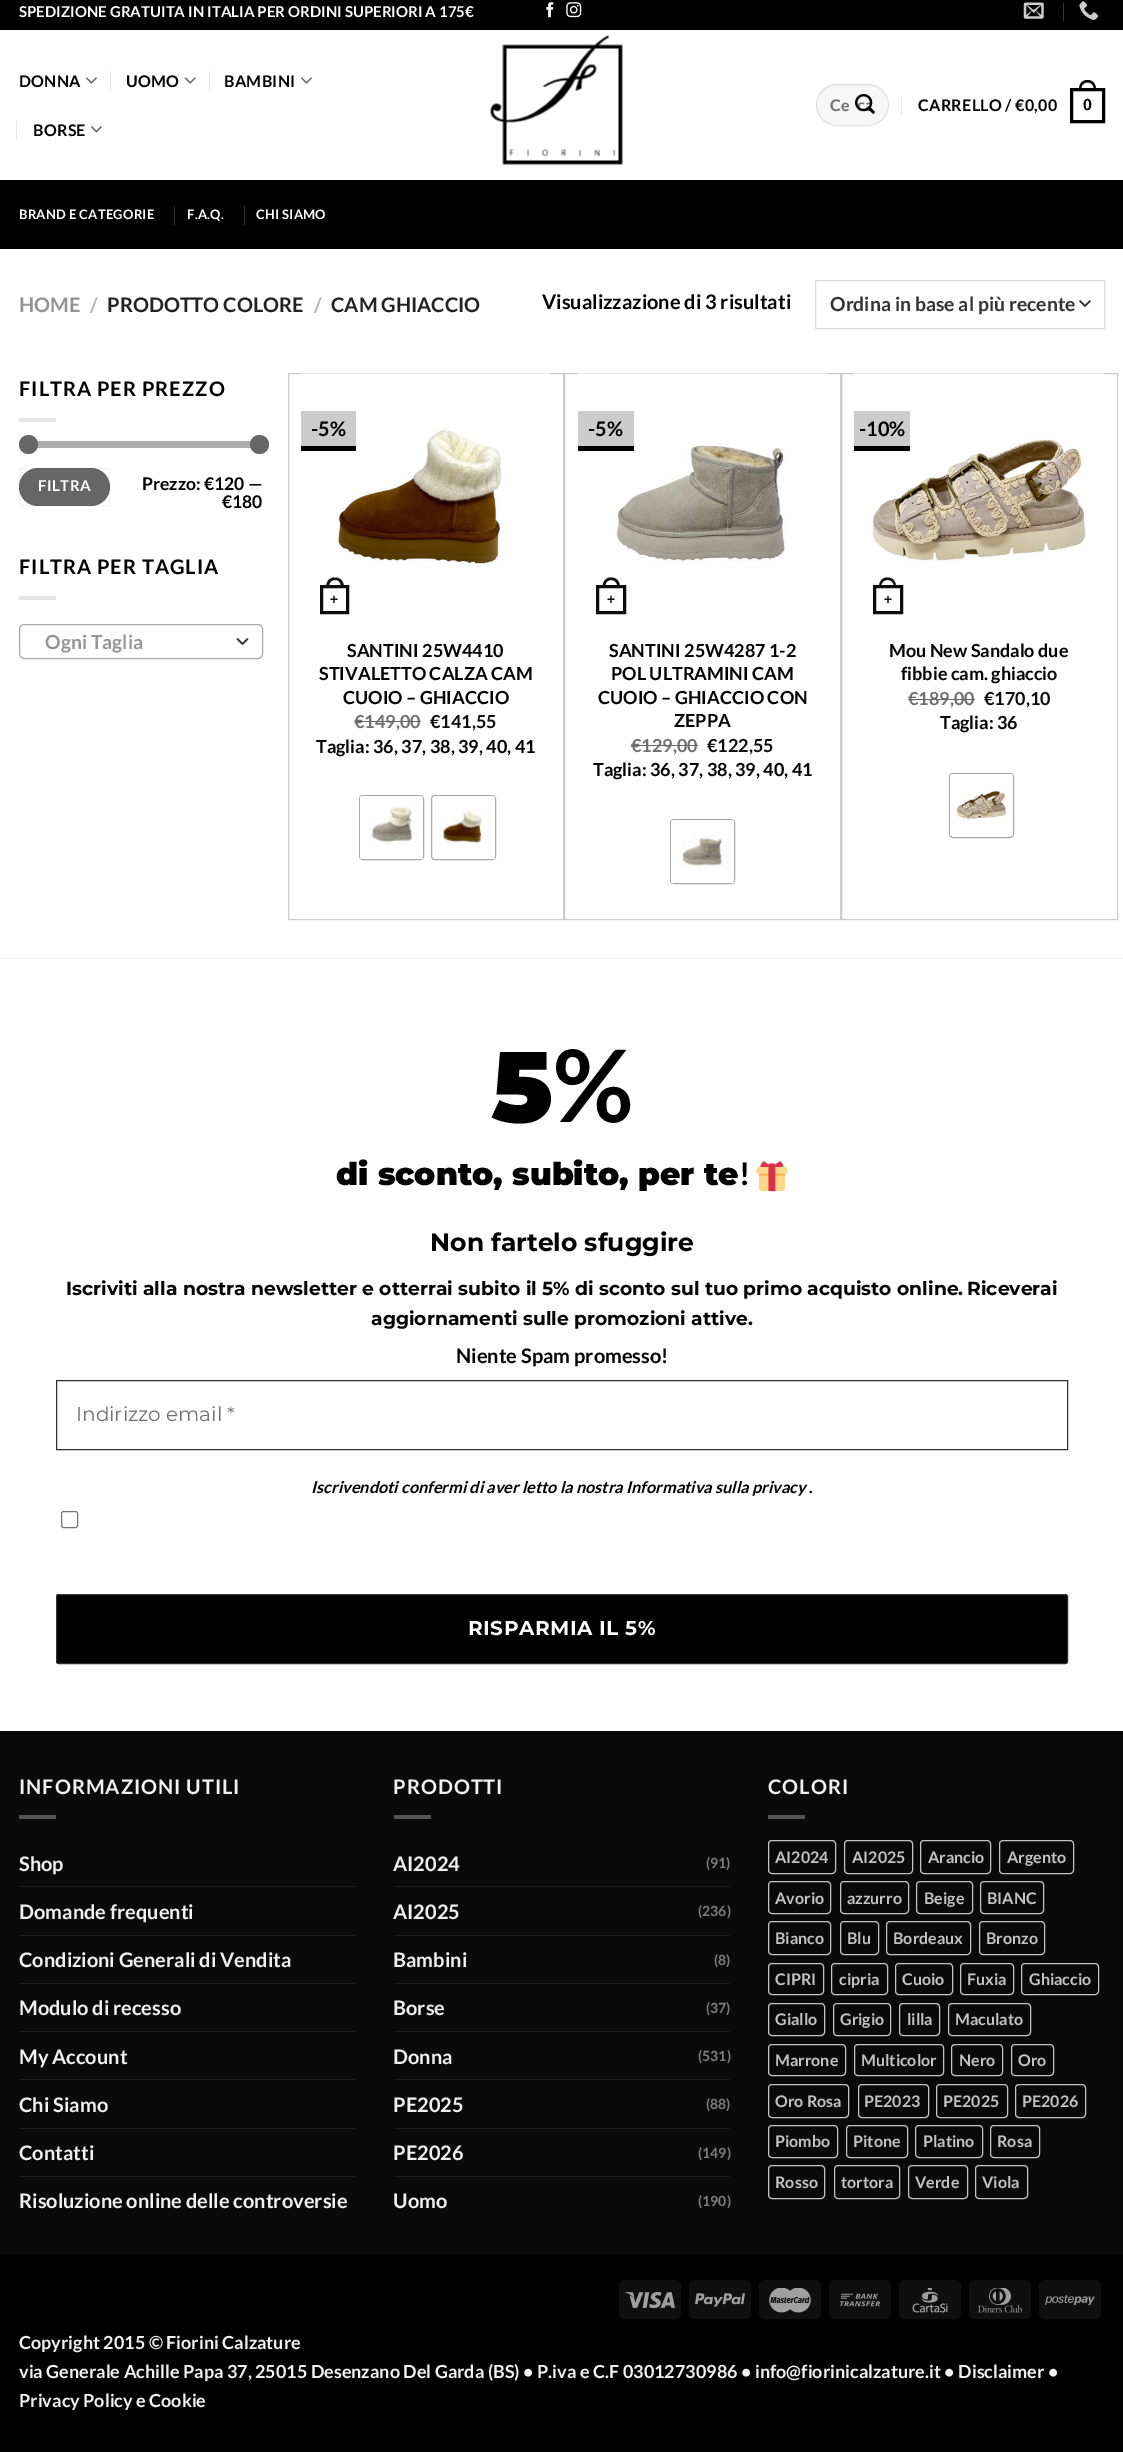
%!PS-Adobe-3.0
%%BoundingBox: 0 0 1123 2452
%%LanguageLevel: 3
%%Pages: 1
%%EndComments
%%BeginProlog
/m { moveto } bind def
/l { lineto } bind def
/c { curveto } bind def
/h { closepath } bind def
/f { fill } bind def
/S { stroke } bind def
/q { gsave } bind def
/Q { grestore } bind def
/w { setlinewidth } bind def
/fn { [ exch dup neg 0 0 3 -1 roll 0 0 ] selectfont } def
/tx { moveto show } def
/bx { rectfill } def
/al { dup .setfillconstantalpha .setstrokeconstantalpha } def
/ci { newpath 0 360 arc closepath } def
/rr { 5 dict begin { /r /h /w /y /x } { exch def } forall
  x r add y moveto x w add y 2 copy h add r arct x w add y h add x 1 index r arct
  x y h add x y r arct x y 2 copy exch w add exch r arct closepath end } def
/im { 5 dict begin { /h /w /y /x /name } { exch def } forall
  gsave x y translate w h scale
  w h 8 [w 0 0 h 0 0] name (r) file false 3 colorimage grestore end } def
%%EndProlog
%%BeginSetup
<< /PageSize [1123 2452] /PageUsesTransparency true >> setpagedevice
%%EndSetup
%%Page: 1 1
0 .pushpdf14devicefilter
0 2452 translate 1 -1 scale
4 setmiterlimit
1 setgray
0 0 1123 2452 bx
0 setgray
0 0 1123 30 bx
/Lato-Bold 15 fn
1 setgray
(SPEDIZIONE GRATUITA IN ITALIA PER ORDINI SUPERIORI A 175€) 19 17 tx
(image0.raw) 546 2 8 16 im
(image1.raw) 566 2 16 16 im
(image2.raw) 1023 2 21 17 im
0.2 setgray
1063 3 1 18 bx
(image3.raw) 1079 1 20 19 im
/Lato-Bold 16 fn
0 setgray
19 87 m 0.3 0 (DONNA) ashow
(image4.raw) 85 77 12 7 im
0.902 setgray
110 71 1 19 bx
0 setgray
126 87 m 0.3 0 (UOMO) ashow
(image5.raw) 184 77 12 7 im
0.902 setgray
209 71 1 19 bx
0 setgray
224 87 m 0.3 0 (BAMBINI) ashow
(image4.raw) 300 77 12 7 im
0.902 setgray
16 121 1 19 bx
0 setgray
33 136 m 0.3 0 (BORSE) ashow
(image6.raw) 91 126 11 7 im
(image7.raw) 490 35 133 130 im
0.969 setgray
816 84 73 42 21 rr f
0.09 al
0 setgray
816.5 84.5 72 41 20.5 rr S
1 al
0.439 setgray
(Ce) 830 111 tx
(image8.raw) 855 93 20 21 im
0.902 setgray
901 96 1 19 bx
0 setgray
918 111 m 0.3 0 (CARRELLO / €0,00) ashow
3 w
1071.5 89.5 32 32 rectstroke
1087.5 80 m 1093.5 80 1096 84.5 1096 90 c 1079 90 l 1079 84.5 1081.5 80 1087.5 80 c h 1087.5 82.5 m 1092 82.5 1094 86 1094 90 c 1081 90 l 1081 86 1083 82.5 1087.5 82.5 c h eofill
/LiberationSans-Bold 16 fn
1083 110 m 0.3 0 (0) ashow
0 180 1123 69 bx
/Lato-Bold 13 fn
1 setgray
19 219 m 0.25 0 (BRAND E CATEGORIE) ashow
0.2 setgray
174 206 1 19 bx
1 setgray
187 219 m 0.25 0 (F.A.Q.) ashow
0.2 setgray
244 206 1 19 bx
1 setgray
256 219 m 0.25 0 (CHI SIAMO) ashow
/Lato-Bold 20 fn
0.58 setgray
(HOME) 19 312 tx
0.698 setgray
(/) 90 312 tx
0.133 setgray
(PRODOTTO COLORE) 107 312 tx
0.698 setgray
(/) 314 312 tx
0.133 setgray
(CAM GHIACCIO) 331 312 tx
0 setgray
(Visualizzazione di 3 risultati) 542 309 tx
0.2 setgray
1.7 w
1 setlinecap
1 setlinejoin
1080 301 m 1085 306 l 1090 301 l S
0.867 setgray
1 w
0 setlinecap
0 setlinejoin
815.5 280.5 289 48 rectstroke
/Lato-Bold 19.4 fn
0.2 setgray
(Ordina in base al più recente) 830 311 tx
/Lato-Bold 20 fn
0 setgray
19 396 m 1 0 (FILTRA PER PREZZO) ashow
0.902 setgray
19 418 37 4 bx
0.945 setgray
19 441 244 7 3.5 rr f
0.5 al
0.4 setgray
19 441 244 7 3.5 rr f
1 al
28.5 444.5 9.5 ci f
259.5 444.5 9.5 ci f
19 468 91 38 19 rr f
0.05 al
0 setgray
19.5 468.5 90 37 rectstroke
/Lato-Bold 15 fn
1 al
1 setgray
38 491 m 0.5 0 (FILTRA) ashow
/Lato-Bold 17.5 fn
0 setgray
(Prezzo: €120 —) 142 490 tx
(€180) 222 508 tx
/Lato-Bold 20 fn
19 574 m 1 0 (FILTRA PER TAGLIA) ashow
0.902 setgray
19 596 37 4 bx
0.2 setgray
1.7 w
1 setlinecap
1 setlinejoin
237.5 639 m 242.5 644 l 247.5 639 l S
0.667 setgray
1 w
0 setlinecap
0 setlinejoin
19.5 624.5 243 34 4.5 rr S
/Lato-Bold 19.4 fn
0.58 setgray
(Ogni Taglia) 45 649 tx
0.8 setgray
288.5 373.5 275 546 rectstroke
(image9.raw) 301 373 249 195 im
301 411 55 35 bx
0 setgray
301 446 55 5 bx
/Lato-Bold 20 fn
(-5%) 311 436 tx
0.051 setgray
3 w
321.5 586.5 26 26 rectstroke
335 577.5 m 341 577.5 344 582 344 587.5 c 326 587.5 l 326 582 329 577.5 335 577.5 c h 335 580 m 339.5 580 341 583.5 341 587.5 c 329 587.5 l 329 583.5 330.5 580 335 580 c h eofill
/LiberationSans-Bold 14 fn
(+) 330 604 tx
/Lato-Bold 18 fn
0 setgray
(SANTINI 25W4410) 347 657 tx
(STIVALETTO CALZA CAM) 319 680 tx
(CUOIO – GHIACCIO) 343 704 tx
0.439 setgray
(€149,00) 354 728 tx
0.4 setgray
355 721 66 1 bx
0.051 setgray
(€141,55) 430 728 tx
0 setgray
(Taglia: 36, 37, 38, 39, 40, 41) 316 753 tx
0.659 setgray
1 w
359.5 795.5 64 64 3.5 rr S
1 setgray
360 796 63 63 2.5 rr f
(image10.raw) 371 807 47 37 im
0.659 setgray
431.5 795.5 64 64 3.5 rr S
1 setgray
433 796 62 63 2.5 rr f
(image11.raw) 435 808 47 37 im
0.8 setgray
564.5 373.5 276 546 rectstroke
(image12.raw) 577 373 251 190 im
578 411 56 35 bx
0 setgray
578 446 56 5 bx
/Lato-Bold 20 fn
(-5%) 588 436 tx
0.051 setgray
3 w
597.5 586.5 27 26 rectstroke
611 577.5 m 617 577.5 620 582 620 587.5 c 602.5 587.5 l 602.5 582 605.5 577.5 611 577.5 c h 611 580 m 615.5 580 617.5 583.5 617.5 587.5 c 605 587.5 l 605 583.5 607 580 611 580 c h eofill
/LiberationSans-Bold 14 fn
(+) 607 604 tx
/Lato-Bold 18 fn
0 setgray
(SANTINI 25W4287 1-2) 609 657 tx
(POL ULTRAMINI CAM) 611 680 tx
(CUOIO – GHIACCIO CON) 598 704 tx
(ZEPPA) 674 727 tx
0.439 setgray
(€129,00) 631 752 tx
0.4 setgray
631 745 67 1 bx
0.051 setgray
(€122,55) 707 752 tx
0 setgray
(Taglia: 36, 37, 38, 39, 40, 41) 593 776 tx
0.659 setgray
1 w
670.5 819.5 64 64 3.5 rr S
1 setgray
671 820 63 63 2.5 rr f
(image13.raw) 681 831 48 37 im
0.8 setgray
841.5 373.5 276 546 rectstroke
(image14.raw) 854 373 250 190 im
854 411 56 35 bx
0 setgray
854 446 56 5 bx
/Lato-Bold 20 fn
(-10%) 859 436 tx
0.051 setgray
3 w
874.5 586.5 27 26 rectstroke
887.5 577.5 m 893.5 577.5 896 582 896 587.5 c 879 587.5 l 879 582 881.5 577.5 887.5 577.5 c h 887.5 580 m 892 580 894 583.5 894 587.5 c 881 587.5 l 881 583.5 883 580 887.5 580 c h eofill
/LiberationSans-Bold 14 fn
(+) 884 604 tx
/Lato-Bold 18 fn
0 setgray
(Mou New Sandalo due) 889 657 tx
(fibbie cam. ghiaccio) 901 680 tx
0.439 setgray
(€189,00) 908 705 tx
0.4 setgray
908 699 67 1 bx
0.051 setgray
(€170,10) 984 705 tx
0 setgray
(Taglia: 36) 940 729 tx
0.659 setgray
1 w
949.5 773.5 64 64 3.5 rr S
1 setgray
950 774 63 62 2.5 rr f
(image15.raw) 956 791 50 28 im
0.949 setgray
0 958 1123 1 bx
/Montserrat-Black 100 fn
0 setgray
(5) 491 1122 tx
/Lato-Bold 100 fn
(%) 553 1122 tx
/Montserrat-Black 31.25 fn
(di sconto, subito, per te) 336 1185 tx
/Lato-Bold 31.25 fn
(!) 739 1185 tx
(image16.raw) 756 1160 32 32 im
/Montserrat-Bold 25 fn
(Non fartelo sfuggire) 430 1251 tx
/Montserrat-Bold 18.75 fn
(Iscriviti alla nostra newsletter e otterrai subito il 5% di sconto sul tuo primo acquisto online.) 66 1295 tx
(Riceverai) 967 1295 tx
(aggiornamenti sulle promozioni attive.) 371 1325 tx
/Lato-Bold 20 fn
(Niente Spam promesso!) 456 1363 tx
0.192 setgray
56.5 1380.5 1011 69 rectstroke
/Montserrat-Regular 20 fn
0.439 setgray
(Indirizzo email *) 76 1421 tx
/Lato-BoldItalic 16.25 fn
0 setgray
(Iscrivendoti confermi di aver letto la nostra Informativa sulla privacy) 311 1493 tx
/Lato-Bold 16.25 fn
(.) 809 1493 tx
0.463 setgray
61.5 1511.5 16 16 2 rr S
0 setgray
56.5 1594.5 1011 69 2 rr q f Q
0.192 setgray
S
/Montserrat-Bold 20 fn
1 setgray
468 1635 m 0.6 0 (RISPARMIA IL 5%) ashow
0.039 setgray
0 1731 1123 523 bx
/Lato-Bold 20 fn
0.945 setgray
19 1794 m 1 0 (INFORMAZIONI UTILI) ashow
0.329 setgray
19 1815 37 4 bx
0.945 setgray
(Shop) 19 1871 tx
0.118 setgray
19 1886 337 1 bx
0.945 setgray
(Domande frequenti) 19 1919 tx
0.118 setgray
19 1935 337 1 bx
0.945 setgray
(Condizioni Generali di Vendita) 19 1967 tx
0.118 setgray
19 1983 337 1 bx
0.945 setgray
(Modulo di recesso) 19 2015 tx
0.118 setgray
19 2031 337 1 bx
0.945 setgray
(My Account) 19 2064 tx
0.118 setgray
19 2079 337 1 bx
0.945 setgray
(Chi Siamo) 19 2112 tx
0.118 setgray
19 2128 337 1 bx
0.945 setgray
(Contatti) 19 2160 tx
0.118 setgray
19 2176 337 1 bx
0.945 setgray
(Risoluzione online delle controversie) 19 2208 tx
393 1794 m 1 0 (PRODOTTI) ashow
0.329 setgray
394 1815 37 4 bx
0.945 setgray
(AI2024) 393 1871 tx
/Lato-Bold 14 fn
0.494 setgray
(\(91\)) 706 1868 tx
0.118 setgray
394 1886 336 1 bx
/Lato-Bold 20 fn
0.945 setgray
(AI2025) 393 1919 tx
/Lato-Bold 14 fn
0.494 setgray
(\(236\)) 698 1916 tx
0.118 setgray
394 1935 336 1 bx
/Lato-Bold 20 fn
0.945 setgray
(Bambini) 393 1967 tx
/Lato-Bold 14 fn
0.494 setgray
(\(8\)) 714 1965 tx
0.118 setgray
394 1983 336 1 bx
/Lato-Bold 20 fn
0.945 setgray
(Borse) 393 2015 tx
/Lato-Bold 14 fn
0.494 setgray
(\(37\)) 706 2013 tx
0.118 setgray
394 2031 336 1 bx
/Lato-Bold 20 fn
0.945 setgray
(Donna) 393 2064 tx
/Lato-Bold 14 fn
0.494 setgray
(\(531\)) 698 2061 tx
0.118 setgray
394 2079 336 1 bx
/Lato-Bold 20 fn
0.945 setgray
(PE2025) 393 2112 tx
/Lato-Bold 14 fn
0.494 setgray
(\(88\)) 706 2109 tx
0.118 setgray
394 2128 336 1 bx
/Lato-Bold 20 fn
0.945 setgray
(PE2026) 393 2160 tx
/Lato-Bold 14 fn
0.494 setgray
(\(149\)) 698 2158 tx
0.118 setgray
394 2176 336 1 bx
/Lato-Bold 20 fn
0.945 setgray
(Uomo) 393 2208 tx
/Lato-Bold 14 fn
0.494 setgray
(\(190\)) 698 2206 tx
/Lato-Bold 20 fn
0.945 setgray
768 1794 m 1 0 (COLORI) ashow
0.329 setgray
768 1815 37 4 bx
0.765 setgray
768.5 1840.5 67 33 3.5 rr S
/Lato-Bold 16 fn
(AI2024) 775 1863 tx
844.5 1840.5 68 33 3.5 rr S
(AI2025) 852 1863 tx
920.5 1840.5 70 33 3.5 rr S
(Arancio) 928 1863 tx
999.5 1840.5 74 33 3.5 rr S
(Argento) 1007 1863 tx
768.5 1881.5 62 32 3.5 rr S
(Avorio) 775 1904 tx
840.5 1881.5 68 32 3.5 rr S
(azzurro) 847 1904 tx
916.5 1881.5 56 32 3.5 rr S
(Beige) 924 1904 tx
980.5 1881.5 63 32 3.5 rr S
(BIANC) 987 1904 tx
768.5 1921.5 62 33 3.5 rr S
(Bianco) 775 1944 tx
840.5 1921.5 38 33 3.5 rr S
(Blu) 847 1944 tx
886.5 1921.5 84 33 3.5 rr S
(Bordeaux) 893 1944 tx
979.5 1921.5 65 33 3.5 rr S
(Bronzo) 986 1944 tx
768.5 1963.5 55 31 3.5 rr S
(CIPRI) 775 1985 tx
831.5 1963.5 56 31 3.5 rr S
(cipria) 839 1985 tx
895.5 1963.5 57 31 3.5 rr S
(Cuoio) 902 1985 tx
960.5 1963.5 53 31 3.5 rr S
(Fuxia) 967 1985 tx
1021.5 1963.5 77 31 3.5 rr S
(Ghiaccio) 1029 1985 tx
768.5 2003.5 56 32 3.5 rr S
(Giallo) 775 2025 tx
833.5 2003.5 57 32 3.5 rr S
(Grigio) 840 2025 tx
899.5 2003.5 40 32 3.5 rr S
(lilla) 907 2025 tx
948.5 2003.5 82 32 3.5 rr S
(Maculato) 955 2025 tx
768.5 2044.5 77 31 3.5 rr S
(Marrone) 775 2066 tx
854.5 2044.5 89 31 3.5 rr S
(Multicolor) 861 2066 tx
951.5 2044.5 51 31 3.5 rr S
(Nero) 959 2066 tx
1011.5 2044.5 42 31 3.5 rr S
(Oro) 1018 2066 tx
768.5 2084.5 80 33 3.5 rr S
(Oro Rosa) 775 2107 tx
858.5 2084.5 70 33 3.5 rr S
(PE2023) 864 2107 tx
936.5 2084.5 71 33 3.5 rr S
(PE2025) 943 2107 tx
1015.5 2084.5 70 33 3.5 rr S
(PE2026) 1022 2107 tx
768.5 2125.5 69 32 3.5 rr S
(Piombo) 775 2147 tx
846.5 2125.5 61 32 3.5 rr S
(Pitone) 853 2147 tx
915.5 2125.5 67 32 3.5 rr S
(Platino) 923 2147 tx
990.5 2125.5 49 32 3.5 rr S
(Rosa) 997 2147 tx
768.5 2165.5 56 33 3.5 rr S
(Rosso) 775 2188 tx
834.5 2165.5 65 33 3.5 rr S
(tortora) 841 2188 tx
908.5 2165.5 59 33 3.5 rr S
(Verde) 915 2188 tx
975.5 2165.5 52 33 3.5 rr S
(Viola) 982 2188 tx
0 setgray
0 2254 1123 198 bx
0.059 setgray
619 2280 62 39 6 rr f
(image17.raw) 625 2291 50 18 im
689 2280 62 39 6 rr f
(image18.raw) 695 2293 50 14 im
759 2280 62 39 6 rr f
(image19.raw) 769 2288 42 25 im
829 2280 62 39 6 rr f
(image20.raw) 840 2293 40 14 im
899 2280 62 39 6 rr f
(image21.raw) 912 2288 36 25 im
969 2280 62 39 6 rr f
(image22.raw) 978 2288 44 25 im
1039 2280 62 39 6 rr f
(image23.raw) 1045 2295 50 11 im
/Lato-Bold 18 fn
0.945 setgray
(Copyright 2015 © Fiorini Calzature) 19 2349 tx
(via Generale Achille Papa 37, 25015 Desenzano Del Garda \(BS\) • P.iva e C.F 03012730986 • info@fiorinicalzature.it • Disclaimer •) 19 2378 tx
(Privacy Policy e Cookie) 19 2407 tx
.poppdf14devicefilter showpage
%%EOF
